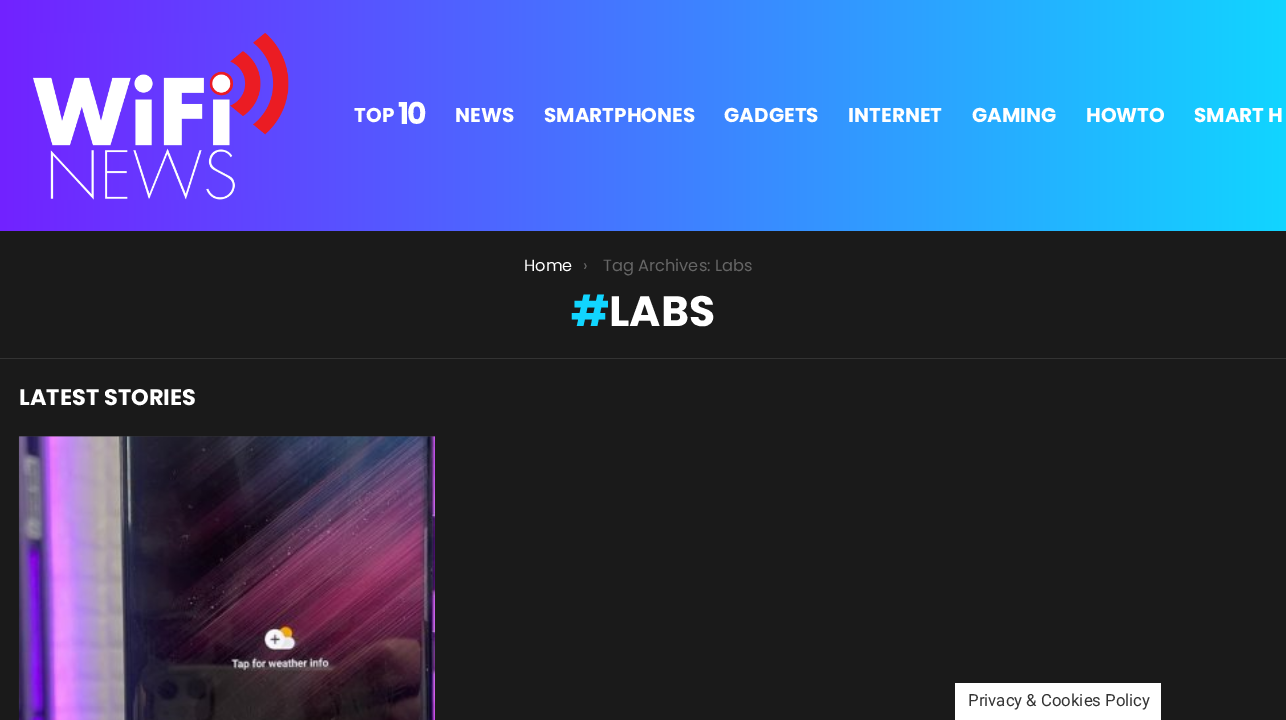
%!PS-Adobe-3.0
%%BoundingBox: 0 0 1286 720
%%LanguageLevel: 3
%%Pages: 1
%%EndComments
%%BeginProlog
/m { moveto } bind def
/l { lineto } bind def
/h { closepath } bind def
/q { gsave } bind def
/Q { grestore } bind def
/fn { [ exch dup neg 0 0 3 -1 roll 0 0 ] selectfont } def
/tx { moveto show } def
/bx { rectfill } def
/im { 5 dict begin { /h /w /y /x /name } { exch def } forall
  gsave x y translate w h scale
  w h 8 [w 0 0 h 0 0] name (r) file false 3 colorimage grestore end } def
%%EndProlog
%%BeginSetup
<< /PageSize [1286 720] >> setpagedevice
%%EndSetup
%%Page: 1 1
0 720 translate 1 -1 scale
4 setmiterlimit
0.102 setgray
0 0 1286 720 bx
q 0 0 m 1286 0 l 1286 231 l 0 231 l h clip newpath
<< /ShadingType 2 /ColorSpace /DeviceRGB /Coords [0 116 1286 116] /Extend [true true] /Function << /FunctionType 2 /Domain [0 1] /C0 [0.447 0.133 1] /C1 [0.067 0.835 1] /N 1 >> >> shfill Q
(image0.raw) 33 33 256 167 im
/Poppins-Bold 20 fn
1 setgray
(TOP) 354 122 tx
/Poppins-Bold 30 fn
398 124 m -2 0 (10) ashow
/Poppins-Bold 20 fn
(NEWS) 455 122 tx
(SMARTPHONES) 544 122 tx
(GADGETS) 724 122 tx
(INTERNET) 848 122 tx
(GAMING) 972 122 tx
(HOWTO) 1086 122 tx
(SMART H) 1194 122 tx
/Poppins-Regular 16.25 fn
(Home) 524 271 tx
0.4 setgray
(›) 583 271 tx
(Tag Archives: Labs) 603 271 tx
/Poppins-Bold 42.5 fn
0.067 0.835 1 setrgbcolor
(#) 571 326 tx
1 setgray
(LABS) 609 326 tx
0.2 setgray
0 358 1286 1 bx
/Poppins-Bold 22.5 fn
1 setgray
(LATEST STORIES) 19 405 tx
0.2 setgray
19 436 416 1 bx
(image1.raw) 18 436 417 284 im
1 setgray
955 683 206 37 bx
/Roboto-Regular 16.75 fn
0.2 setgray
(Privacy & Cookies Policy) 968 706 tx
showpage
%%EOF
